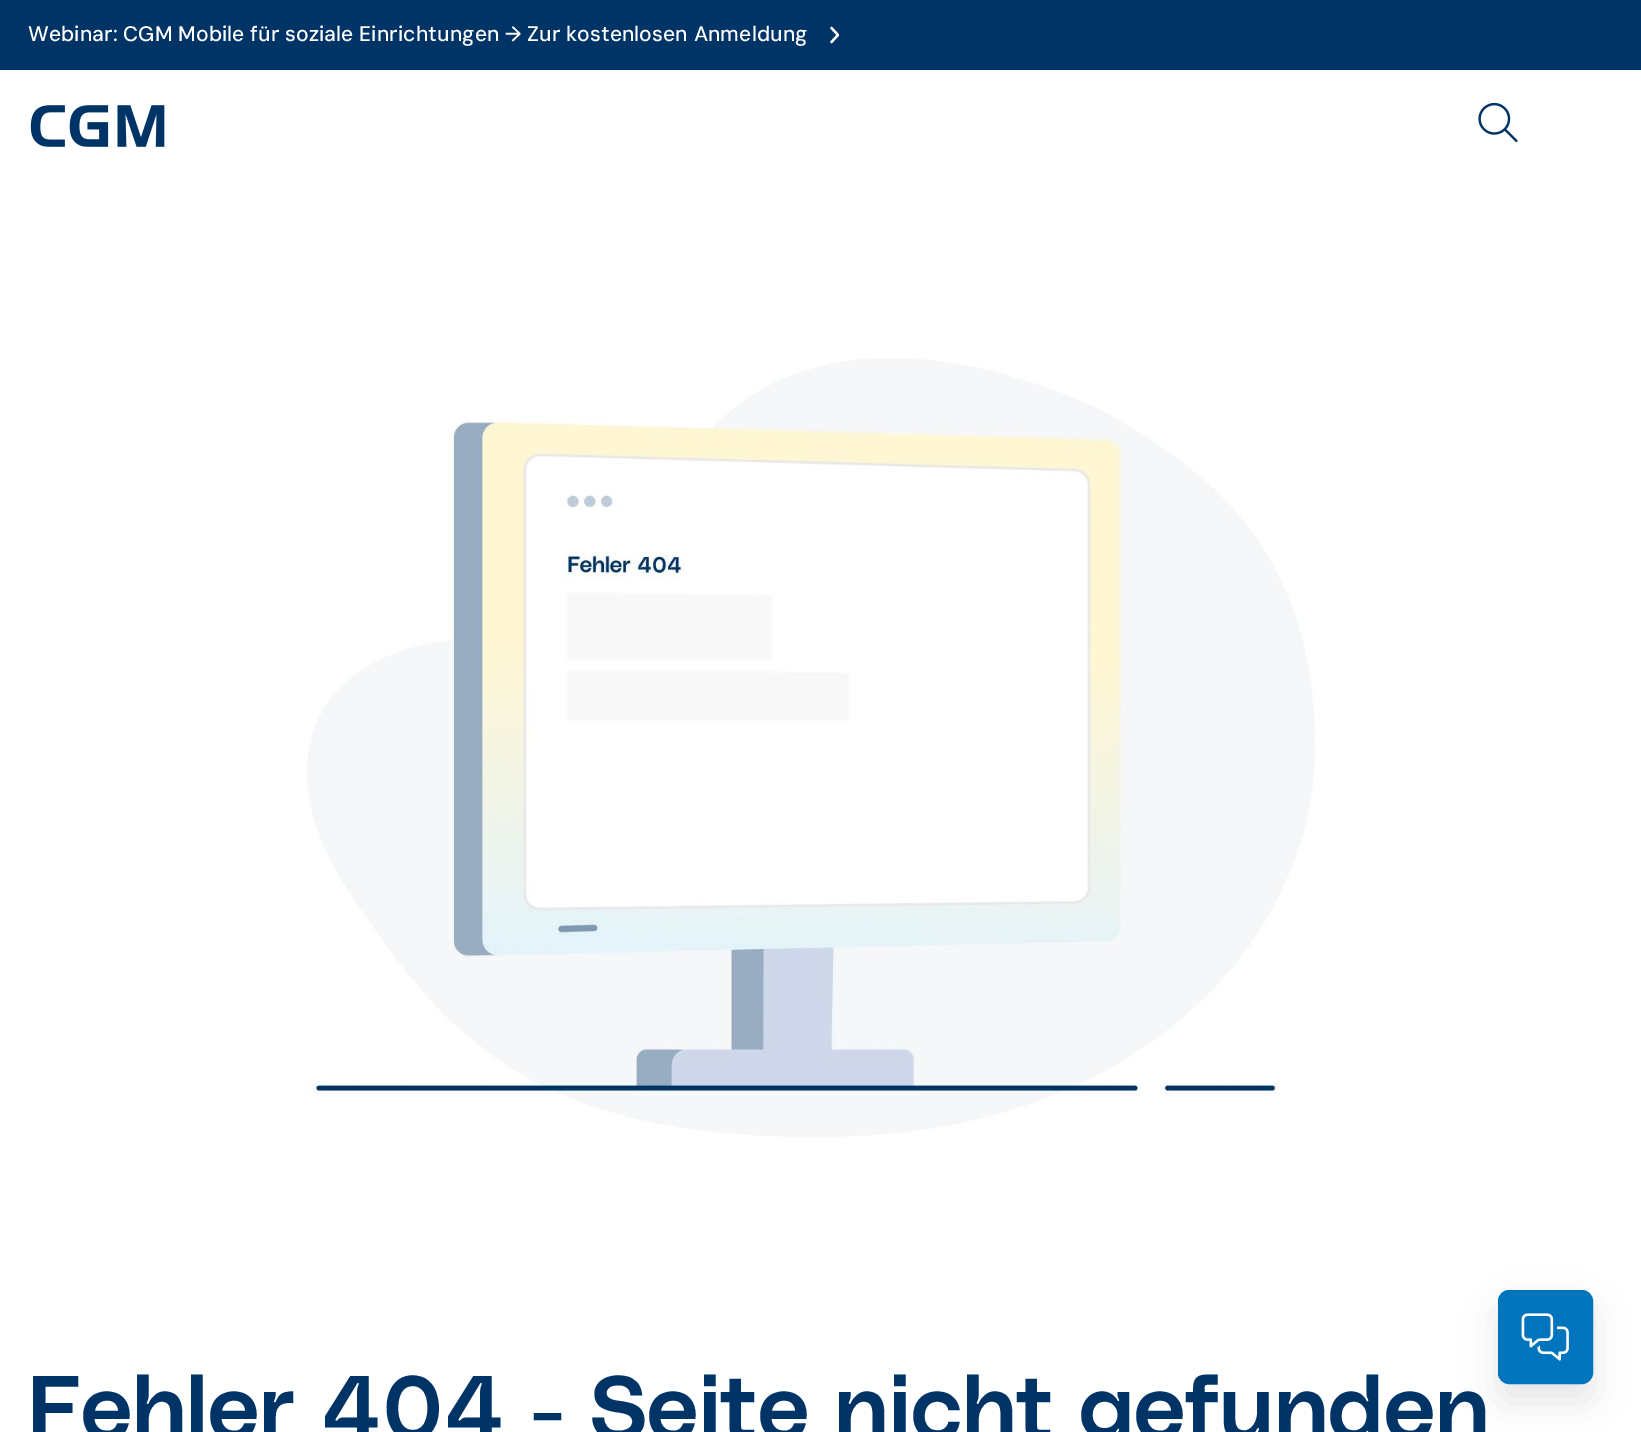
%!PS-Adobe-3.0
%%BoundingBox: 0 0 1641 1432
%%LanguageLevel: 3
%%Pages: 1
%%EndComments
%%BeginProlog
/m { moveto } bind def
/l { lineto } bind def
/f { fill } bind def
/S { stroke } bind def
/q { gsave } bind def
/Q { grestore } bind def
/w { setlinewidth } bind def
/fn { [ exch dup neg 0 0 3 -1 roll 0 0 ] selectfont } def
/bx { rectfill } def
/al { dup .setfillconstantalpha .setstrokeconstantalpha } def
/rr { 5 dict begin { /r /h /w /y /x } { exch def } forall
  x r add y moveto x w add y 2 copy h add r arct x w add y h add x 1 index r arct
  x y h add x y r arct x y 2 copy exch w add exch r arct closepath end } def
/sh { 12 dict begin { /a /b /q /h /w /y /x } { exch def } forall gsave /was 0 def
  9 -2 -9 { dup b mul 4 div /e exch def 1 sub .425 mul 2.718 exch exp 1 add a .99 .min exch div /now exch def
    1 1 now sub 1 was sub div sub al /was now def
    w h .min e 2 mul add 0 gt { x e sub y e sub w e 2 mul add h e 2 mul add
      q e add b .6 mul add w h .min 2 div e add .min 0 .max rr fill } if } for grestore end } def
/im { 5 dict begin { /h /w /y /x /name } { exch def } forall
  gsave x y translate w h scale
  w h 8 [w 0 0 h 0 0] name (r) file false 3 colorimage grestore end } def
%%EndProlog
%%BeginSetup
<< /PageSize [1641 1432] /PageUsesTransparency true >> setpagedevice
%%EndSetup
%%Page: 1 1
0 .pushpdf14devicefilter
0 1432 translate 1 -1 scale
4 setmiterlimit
1 setgray
0 0 1641 1432 bx
0 0.2 0.4 setrgbcolor
0 0 1641 70 bx
/DMSans-Medium 21 fn
1 setgray
28 41 m 0.1 0 (Webinar: CGM Mobile für soziale Einrichtungen → Zur kostenlosen Anmeldung) ashow
2.3 w
1 setlinecap
1 setlinejoin
831.5 28 m 838 35 l 831.5 42 l S
(image0.raw) 30 105 135 42 im
(image1.raw) 1478 102 40 41 im
0 setgray
1498 1307 95 95 11 17.5 0.1 sh
0 0.455 0.737 setrgbcolor
1499 1291 93 92 10 rr q f Q
2 w
0 setlinecap
0 setlinejoin
S
(image2.raw) 1521 1313 48 48 im
(image3.raw) 306 358 1009 779 im
/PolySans-SemiBold 91 fn
0 0.2 0.4 setrgbcolor
28 1440 m 0.15 0 (Fehler 404 - Seite nicht gefunden) ashow
.poppdf14devicefilter showpage
%%EOF
